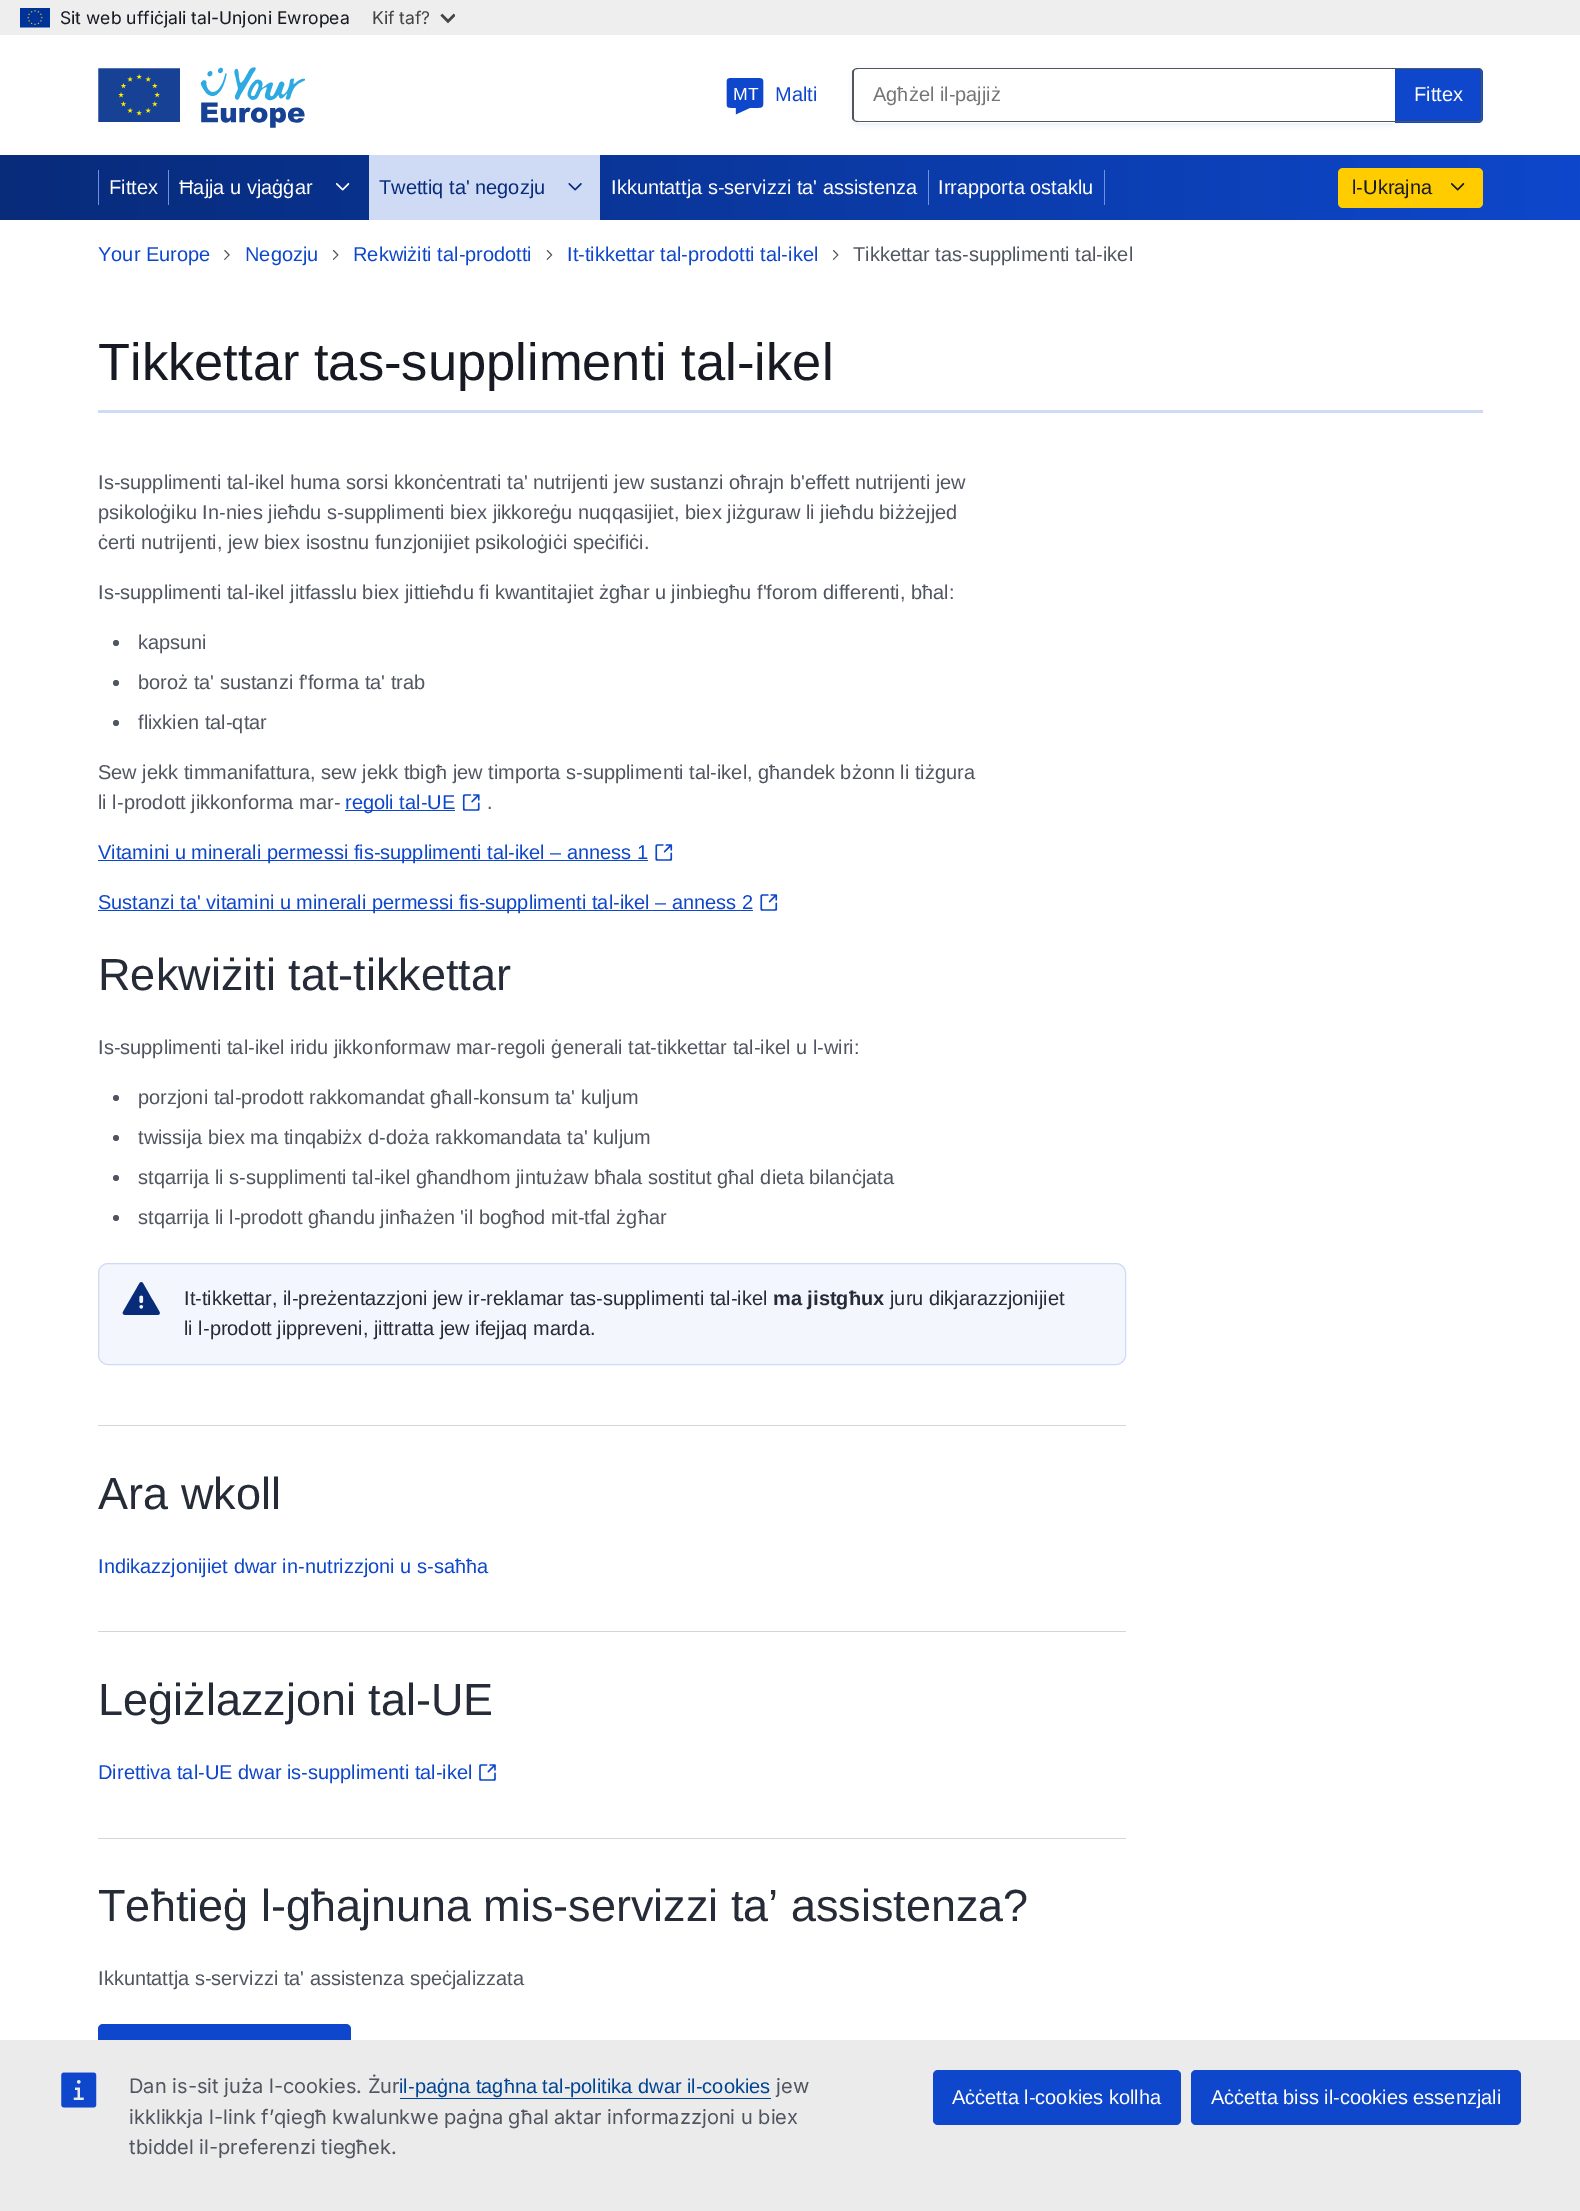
%!PS-Adobe-3.0
%%BoundingBox: 0 0 1580 2211
%%LanguageLevel: 3
%%Pages: 1
%%EndComments
%%BeginProlog
/m { moveto } bind def
/l { lineto } bind def
/c { curveto } bind def
/h { closepath } bind def
/f { fill } bind def
/S { stroke } bind def
/q { gsave } bind def
/Q { grestore } bind def
/w { setlinewidth } bind def
/fn { [ exch dup neg 0 0 3 -1 roll 0 0 ] selectfont } def
/tx { moveto show } def
/bx { rectfill } def
/al { dup .setfillconstantalpha .setstrokeconstantalpha } def
/ci { newpath 0 360 arc closepath } def
/rr { 5 dict begin { /r /h /w /y /x } { exch def } forall
  x r add y moveto x w add y 2 copy h add r arct x w add y h add x 1 index r arct
  x y h add x y r arct x y 2 copy exch w add exch r arct closepath end } def
/sh { 12 dict begin { /a /b /q /h /w /y /x } { exch def } forall gsave /was 0 def
  9 -2 -9 { dup b mul 4 div /e exch def 1 sub .425 mul 2.718 exch exp 1 add a .99 .min exch div /now exch def
    1 1 now sub 1 was sub div sub al /was now def
    w h .min e 2 mul add 0 gt { x e sub y e sub w e 2 mul add h e 2 mul add
      q e add b .6 mul add w h .min 2 div e add .min 0 .max rr fill } if } for grestore end } def
/im { 5 dict begin { /h /w /y /x /name } { exch def } forall
  gsave x y translate w h scale
  w h 8 [w 0 0 h 0 0] name (r) file false 3 colorimage grestore end } def
%%EndProlog
%%BeginSetup
<< /PageSize [1580 2211] /PageUsesTransparency true >> setpagedevice
%%EndSetup
%%Page: 1 1
0 .pushpdf14devicefilter
0 2211 translate 1 -1 scale
4 setmiterlimit
1 setgray
0 0 1580 2211 bx
0.933 setgray
0 0 1580 35 bx
(image0.raw) 20 8 30 20 im
/Inter-Regular 17.5 fn
0.09 0.102 0.133 setrgbcolor
(Sit web uffiċjali tal-Unjoni Ewropea) 60 24 tx
0.267 setgray
(Kif taf?) 372 24 tx
(image1.raw) 440 13 15 11 im
0.086 0.255 0.58 setrgbcolor
98 68 3 55 bx
(image2.raw) 101 67 204 61 im
q
98 61 207 68 rectclip
1 setgray
3 w
96.5 66.5 85 57 rectstroke
Q
(image3.raw) 726 78 38 37 im
/LiberationSans-Regular 20 fn
0.055 0.278 0.796 setrgbcolor
(Malti) 775 101 tx
/LiberationSans-Regular 17.5 fn
1 setgray
(MT) 733 100 tx
0.055 0.278 0.796 setrgbcolor
1395 68 m 1478 68 l 1481 68 1483 70 1483 73 c 1483 118 l 1483 121 1481 123 1478 123 c 1395 123 l h f
0.318 0.333 0.376 setrgbcolor
1395 68 m 1478 68 l 1480 68 1482 70 1482 72 c 1482 118 l 1482 120 1480 122 1478 122 c 1395 122 l h 1395 69 m 1478 69 l 1480 69 1481 70 1481 72 c 1481 118 l 1481 120 1480 121 1478 121 c 1395 121 l h eofill
q
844 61 m 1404 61 l 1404 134 l 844 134 l h 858 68 m 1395 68 l 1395 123 l 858 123 l 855 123 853 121 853 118 c 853 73 l 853 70 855 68 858 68 c h eoclip newpath
0.035 0.192 0.557 setrgbcolor
853 70 542 55 5 2.5 0.08 sh
Q
858 68 m 1395 68 l 1395 122 l 858 122 l 855 122 852 120 852 118 c 852 72 l 852 70 855 68 858 68 c h 858 69 m 1395 69 l 1395 121 l 858 121 l 855 121 854 120 854 118 c 854 72 l 854 70 855 69 858 69 c h eofill
/LiberationSans-Regular 20 fn
0.459 setgray
(Agħżel il-pajjiż) 873 101 tx
1 setgray
(Fittex) 1414 101 tx
q 0 155 m 1580 155 l 1580 220 l 0 220 l h clip newpath
<< /ShadingType 2 /ColorSpace /DeviceRGB /Coords [0 188 1580 187] /Extend [true true] /Function << /FunctionType 2 /Domain [0 1] /C0 [0.031 0.169 0.478] /C1 [0.055 0.278 0.796] /N 1 >> >> shfill Q
0.431 0.569 0.878 setrgbcolor
98 170 1 35 bx
1 setgray
(Fittex) 109 194 tx
0.431 0.569 0.878 setrgbcolor
168 170 1 35 bx
1 setgray
(Ħajja u vjaġġar) 179 194 tx
(image4.raw) 336 183 14 8 im
0.812 0.855 0.961 setrgbcolor
369 155 231 65 bx
0.031 0.169 0.478 setrgbcolor
(Twettiq ta' negozju) 379 194 tx
(image5.raw) 568 183 14 8 im
1 setgray
(Ikkuntattja s-servizzi ta' assistenza) 611 194 tx
0.431 0.569 0.878 setrgbcolor
928 170 1 35 bx
1 setgray
(Irrapporta ostaklu) 938 194 tx
0.431 0.569 0.878 setrgbcolor
1104 170 1 35 bx
1 0.8 0 setrgbcolor
1338 168 145 40 5 rr f
0.09 0.102 0.133 setrgbcolor
(l-Ukrajna) 1352 194 tx
(image6.raw) 1451 183 14 8 im
0.055 0.278 0.796 setrgbcolor
(Your Europe) 98 261 tx
(image7.raw) 224 250 6 10 im
(Negozju) 245 261 tx
(image8.raw) 332 250 7 10 im
(Rekwiżiti tal-prodotti) 353 261 tx
(image9.raw) 546 250 7 10 im
(It-tikkettar tal-prodotti tal-ikel) 567 261 tx
(image8.raw) 832 250 7 10 im
0.318 0.333 0.376 setrgbcolor
(Tikkettar tas-supplimenti tal-ikel) 853 261 tx
0.812 0.855 0.961 setrgbcolor
98 410 1385 3 bx
/LiberationSans-Regular 52.5 fn
0.09 0.102 0.133 setrgbcolor
(Tikkettar tas-supplimenti tal-ikel) 98 380 tx
/LiberationSans-Regular 20 fn
0.318 0.333 0.376 setrgbcolor
(Is-supplimenti tal-ikel huma sorsi kkonċentrati ta' nutrijenti jew sustanzi oħrajn b'effett nutrijenti jew) 98 489 tx
(psikoloġiku In-nies jieħdu s-supplimenti biex jikkoreġu nuqqasijiet, biex jiżguraw li jieħdu biżżejjed) 98 519 tx
(ċerti nutrijenti, jew biex isostnu funzjonijiet psikoloġiċi speċifiċi.) 98 549 tx
(Is-supplimenti tal-ikel jitfasslu biex jittieħdu fi kwantitajiet żgħar u jinbiegħu f'forom differenti, bħal:) 98 599 tx
116 643 3 ci f
(kapsuni) 138 649 tx
116 683 3 ci f
(boroż ta' sustanzi f'forma ta' trab) 138 689 tx
116 723 3 ci f
(flixkien tal-qtar) 138 729 tx
(Sew jekk timmanifattura, sew jekk tbigħ jew timporta s-supplimenti tal-ikel, għandek bżonn li tiżgura) 98 779 tx
(li l-prodott jikkonforma mar-) 98 809 tx
0.055 0.278 0.796 setrgbcolor
345 810 110 1 bx
(regoli tal-UE) 345 809 tx
(image10.raw) 462 794 18 17 im
0.318 0.333 0.376 setrgbcolor
(.) 487 809 tx
0.055 0.278 0.796 setrgbcolor
98 860 550 1 bx
(Vitamini u minerali permessi fis-supplimenti tal-ikel – anness 1) 98 859 tx
(image11.raw) 655 844 18 17 im
98 910 655 1 bx
(Sustanzi ta' vitamini u minerali permessi fis-supplimenti tal-ikel – anness 2) 98 909 tx
(image12.raw) 760 894 18 17 im
/LiberationSans-Regular 45 fn
0.149 0.169 0.22 setrgbcolor
(Rekwiżiti tat-tikkettar) 98 990 tx
/LiberationSans-Regular 20 fn
0.318 0.333 0.376 setrgbcolor
(Is-supplimenti tal-ikel iridu jikkonformaw mar-regoli ġenerali tat-tikkettar tal-ikel u l-wiri:) 98 1054 tx
116 1098 3 ci f
(porzjoni tal-prodott rakkomandat għall-konsum ta' kuljum) 138 1104 tx
116 1138 3 ci f
(twissija biex ma tinqabiżx d-doża rakkomandata ta' kuljum) 138 1144 tx
116 1178 3 ci f
(stqarrija li s-supplimenti tal-ikel għandhom jintużaw bħala sostitut għal dieta bilanċjata) 138 1184 tx
116 1218 3 ci f
(stqarrija li l-prodott għandu jinħażen 'il bogħod mit-tfal żgħar) 138 1224 tx
0.953 0.965 0.988 setrgbcolor
98.5 1263.5 1027 101 9.5 rr q f Q
0.812 0.855 0.961 setrgbcolor
S
(image13.raw) 122 1282 38 33 im
0.149 0.169 0.22 setrgbcolor
(It-tikkettar, il-preżentazzjoni jew ir-reklamar tas-supplimenti tal-ikel) 184 1305 tx
/LiberationSans-Bold 20 fn
(ma jistgħux) 773 1305 tx
/LiberationSans-Regular 20 fn
(juru dikjarazzjonijiet) 890 1305 tx
(li l-prodott jippreveni, jittratta jew ifejjaq marda.) 184 1335 tx
0.831 0.835 0.843 setrgbcolor
98 1425 1028 1 bx
/LiberationSans-Regular 45 fn
0.149 0.169 0.22 setrgbcolor
(Ara wkoll) 98 1509 tx
/LiberationSans-Regular 20 fn
0.055 0.278 0.796 setrgbcolor
(Indikazzjonijiet dwar in-nutrizzjoni u s-saħħa) 98 1573 tx
0.831 0.835 0.843 setrgbcolor
98 1631 1028 1 bx
/LiberationSans-Regular 45 fn
0.149 0.169 0.22 setrgbcolor
(Leġiżlazzjoni tal-UE) 98 1715 tx
/LiberationSans-Regular 20 fn
0.055 0.278 0.796 setrgbcolor
(Direttiva tal-UE dwar is-supplimenti tal-ikel) 98 1779 tx
(image14.raw) 479 1764 17 17 im
0.831 0.835 0.843 setrgbcolor
98 1838 1028 1 bx
/LiberationSans-Regular 45 fn
0.149 0.169 0.22 setrgbcolor
(Teħtieġ l-għajnuna mis-servizzi ta’ assistenza?) 98 1921 tx
/LiberationSans-Regular 20 fn
0.318 0.333 0.376 setrgbcolor
(Ikkuntattja s-servizzi ta' assistenza speċjalizzata) 98 1985 tx
0.055 0.278 0.796 setrgbcolor
98 2024 253 55 5 rr f
0.922 setgray
0 2040 1580 171 bx
(image15.raw) 61 2072 36 36 im
/Inter-Regular 20 fn
0.318 0.333 0.376 setrgbcolor
(Dan is-sit juża l-cookies. Żur) 129 2093 tx
/LiberationSans-Regular 20 fn
0 0.267 0.58 setrgbcolor
(il-paġna tagħna tal-politika dwar il-cookies) 399 2093 tx
400 2098 371 1 bx
/Inter-Regular 20 fn
0.318 0.333 0.376 setrgbcolor
(jew) 776 2093 tx
(ikklikkja l-link f’qiegħ kwalunkwe paġna għal aktar informazzjoni u biex) 129 2124 tx
(tbiddel il-preferenzi tiegħek.) 129 2154 tx
0.055 0.278 0.796 setrgbcolor
933 2070 248 55 5 rr f
/LiberationSans-Regular 20 fn
1 setgray
(Aċċetta l-cookies kollha) 952 2104 tx
0.055 0.278 0.796 setrgbcolor
1191 2070 330 55 5 rr f
1 setgray
(Aċċetta biss il-cookies essenzjali) 1211 2104 tx
.poppdf14devicefilter showpage
%%EOF
